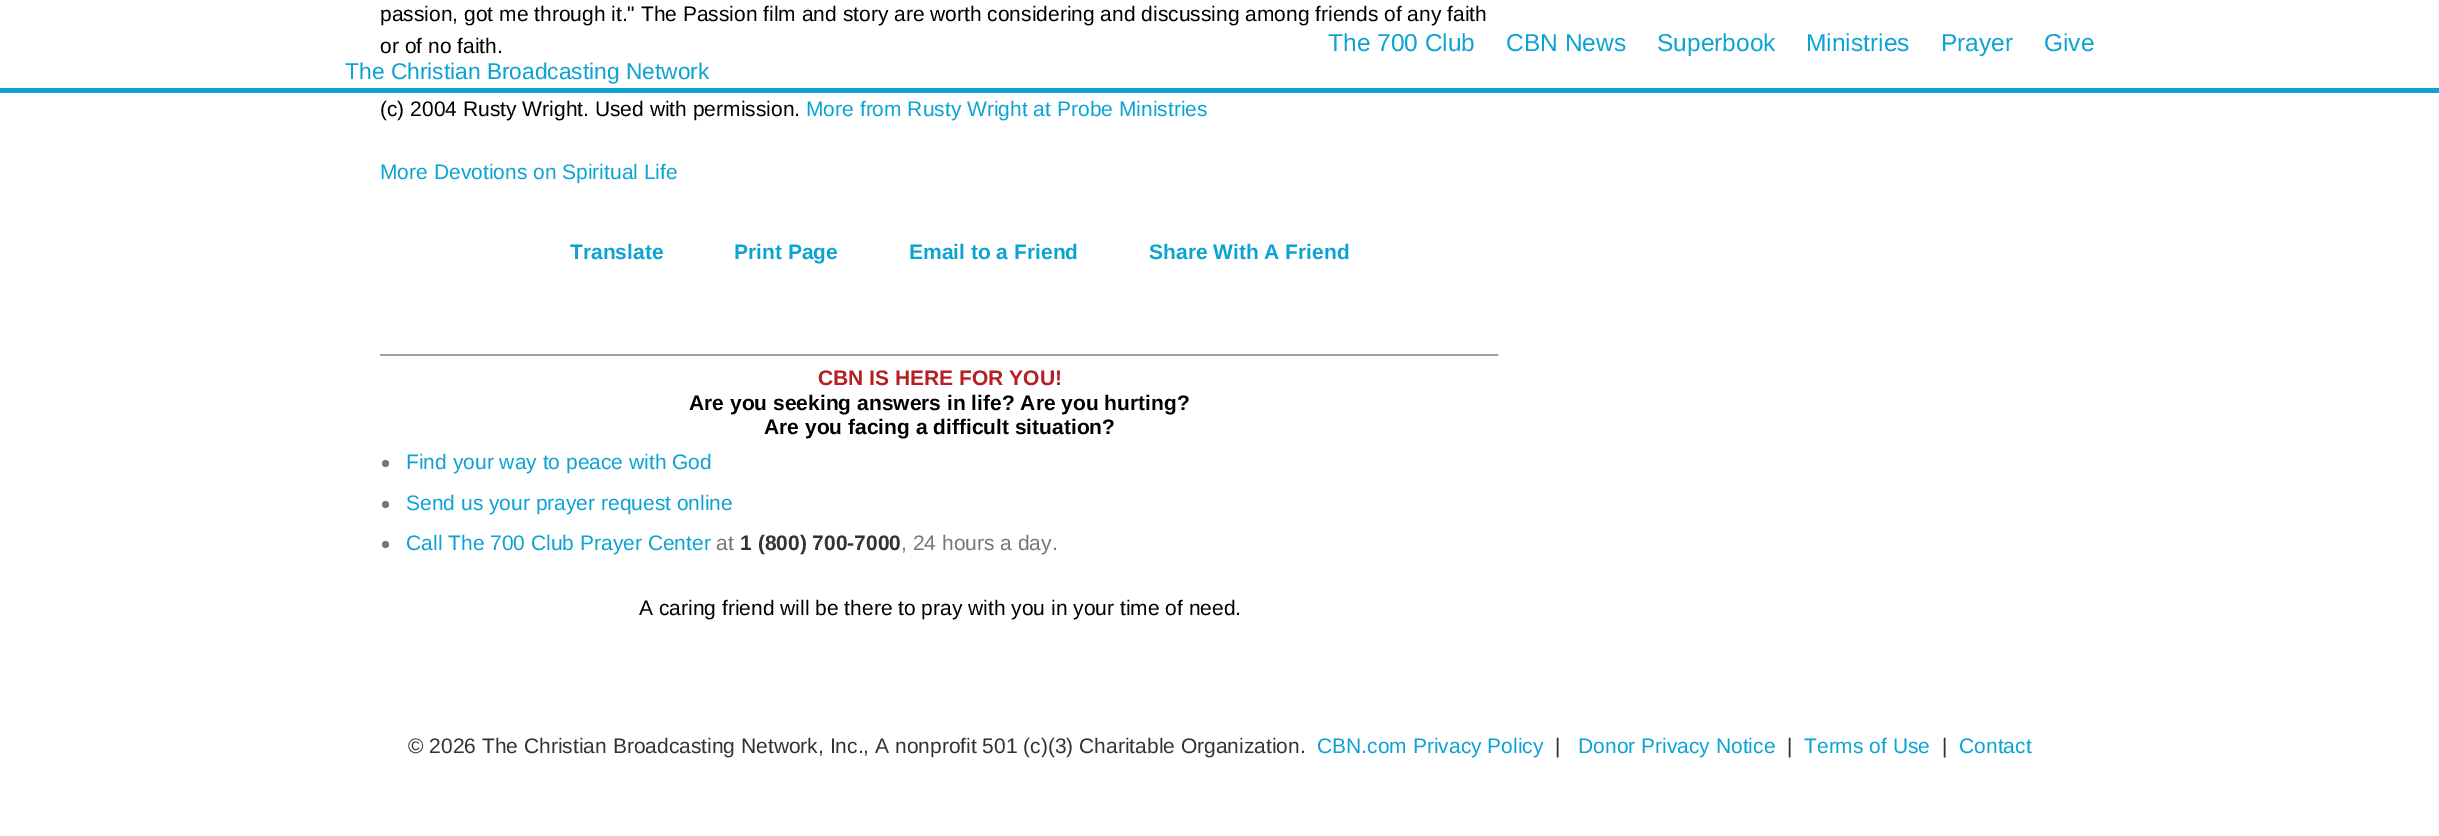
%!PS-Adobe-3.0
%%BoundingBox: 0 0 2439 836
%%LanguageLevel: 3
%%Pages: 1
%%EndComments
%%BeginProlog
/f { fill } bind def
/fn { [ exch dup neg 0 0 3 -1 roll 0 0 ] selectfont } def
/tx { moveto show } def
/bx { rectfill } def
/ci { newpath 0 360 arc closepath } def
%%EndProlog
%%BeginSetup
<< /PageSize [2439 836] >> setpagedevice
%%EndSetup
%%Page: 1 1
0 836 translate 1 -1 scale
4 setmiterlimit
1 setgray
0 0 2439 836 bx
/LiberationSans-Regular 21 fn
0 setgray
(passion, got me through it." The Passion film and story are worth considering and discussing among friends of any faith) 380 21 tx
(or of no faith.) 380 53 tx
(\(c\) 2004 Rusty Wright. Used with permission.) 380 116 tx
0.047 0.639 0.831 setrgbcolor
(More from Rusty Wright at Probe Ministries) 806 116 tx
(More Devotions on Spiritual Life) 380 179 tx
/LiberationSans-Bold 21 fn
(Translate) 570 259 tx
(Print Page) 734 259 tx
(Email to a Friend) 909 259 tx
(Share With A Friend) 1149 259 tx
0.624 setgray
380 354 1120 2 bx
0.933 setgray
1498 354 2 2 bx
0.71 0.125 0.145 setrgbcolor
(CBN IS HERE FOR YOU!) 818 385 tx
0 setgray
(Are you seeking answers in life? Are you hurting?) 689 410 tx
(Are you facing a difficult situation?) 764 434 tx
0.467 setgray
385.5 463.5 3.5 ci f
/LiberationSans-Regular 21 fn
0.047 0.639 0.831 setrgbcolor
(Find your way to peace with God) 406 469 tx
0.467 setgray
385.5 504.5 3.5 ci f
0.047 0.639 0.831 setrgbcolor
(Send us your prayer request online) 406 510 tx
0.467 setgray
385.5 544.5 3.5 ci f
0.047 0.639 0.831 setrgbcolor
(Call The 700 Club Prayer Center) 406 550 tx
0.467 setgray
(at) 716 550 tx
/LiberationSans-Bold 21 fn
0.2 setgray
(1 \(800\) 700-7000) 740 550 tx
/LiberationSans-Regular 21 fn
0.467 setgray
(, 24 hours a day.) 901 550 tx
0 setgray
(A caring friend will be there to pray with you in your time of need.) 639 615 tx
0.047 0.639 0.831 setrgbcolor
0 88 2439 5 bx
/LiberationSans-Regular 24.5 fn
(The 700 Club) 1328 51 tx
(CBN News) 1506 51 tx
(Superbook) 1657 51 tx
(Ministries) 1806 51 tx
(Prayer) 1941 51 tx
(Give) 2044 51 tx
/LiberationSans-Regular 22.75 fn
(The Christian Broadcasting Network) 345 79 tx
/LiberationSans-Regular 21 fn
0.2 setgray
(© 2026 The Christian Broadcasting Network, Inc., A nonprofit 501 \(c\)\(3\) Charitable Organization.) 408 753 tx
0.047 0.639 0.831 setrgbcolor
(CBN.com Privacy Policy) 1317 753 tx
0.2 setgray
(|) 1555 753 tx
0.047 0.639 0.831 setrgbcolor
(Donor Privacy Notice) 1578 753 tx
0.2 setgray
(|) 1787 753 tx
0.047 0.639 0.831 setrgbcolor
(Terms of Use) 1804 753 tx
0.2 setgray
(|) 1942 753 tx
0.047 0.639 0.831 setrgbcolor
(Contact) 1959 753 tx
showpage
%%EOF
